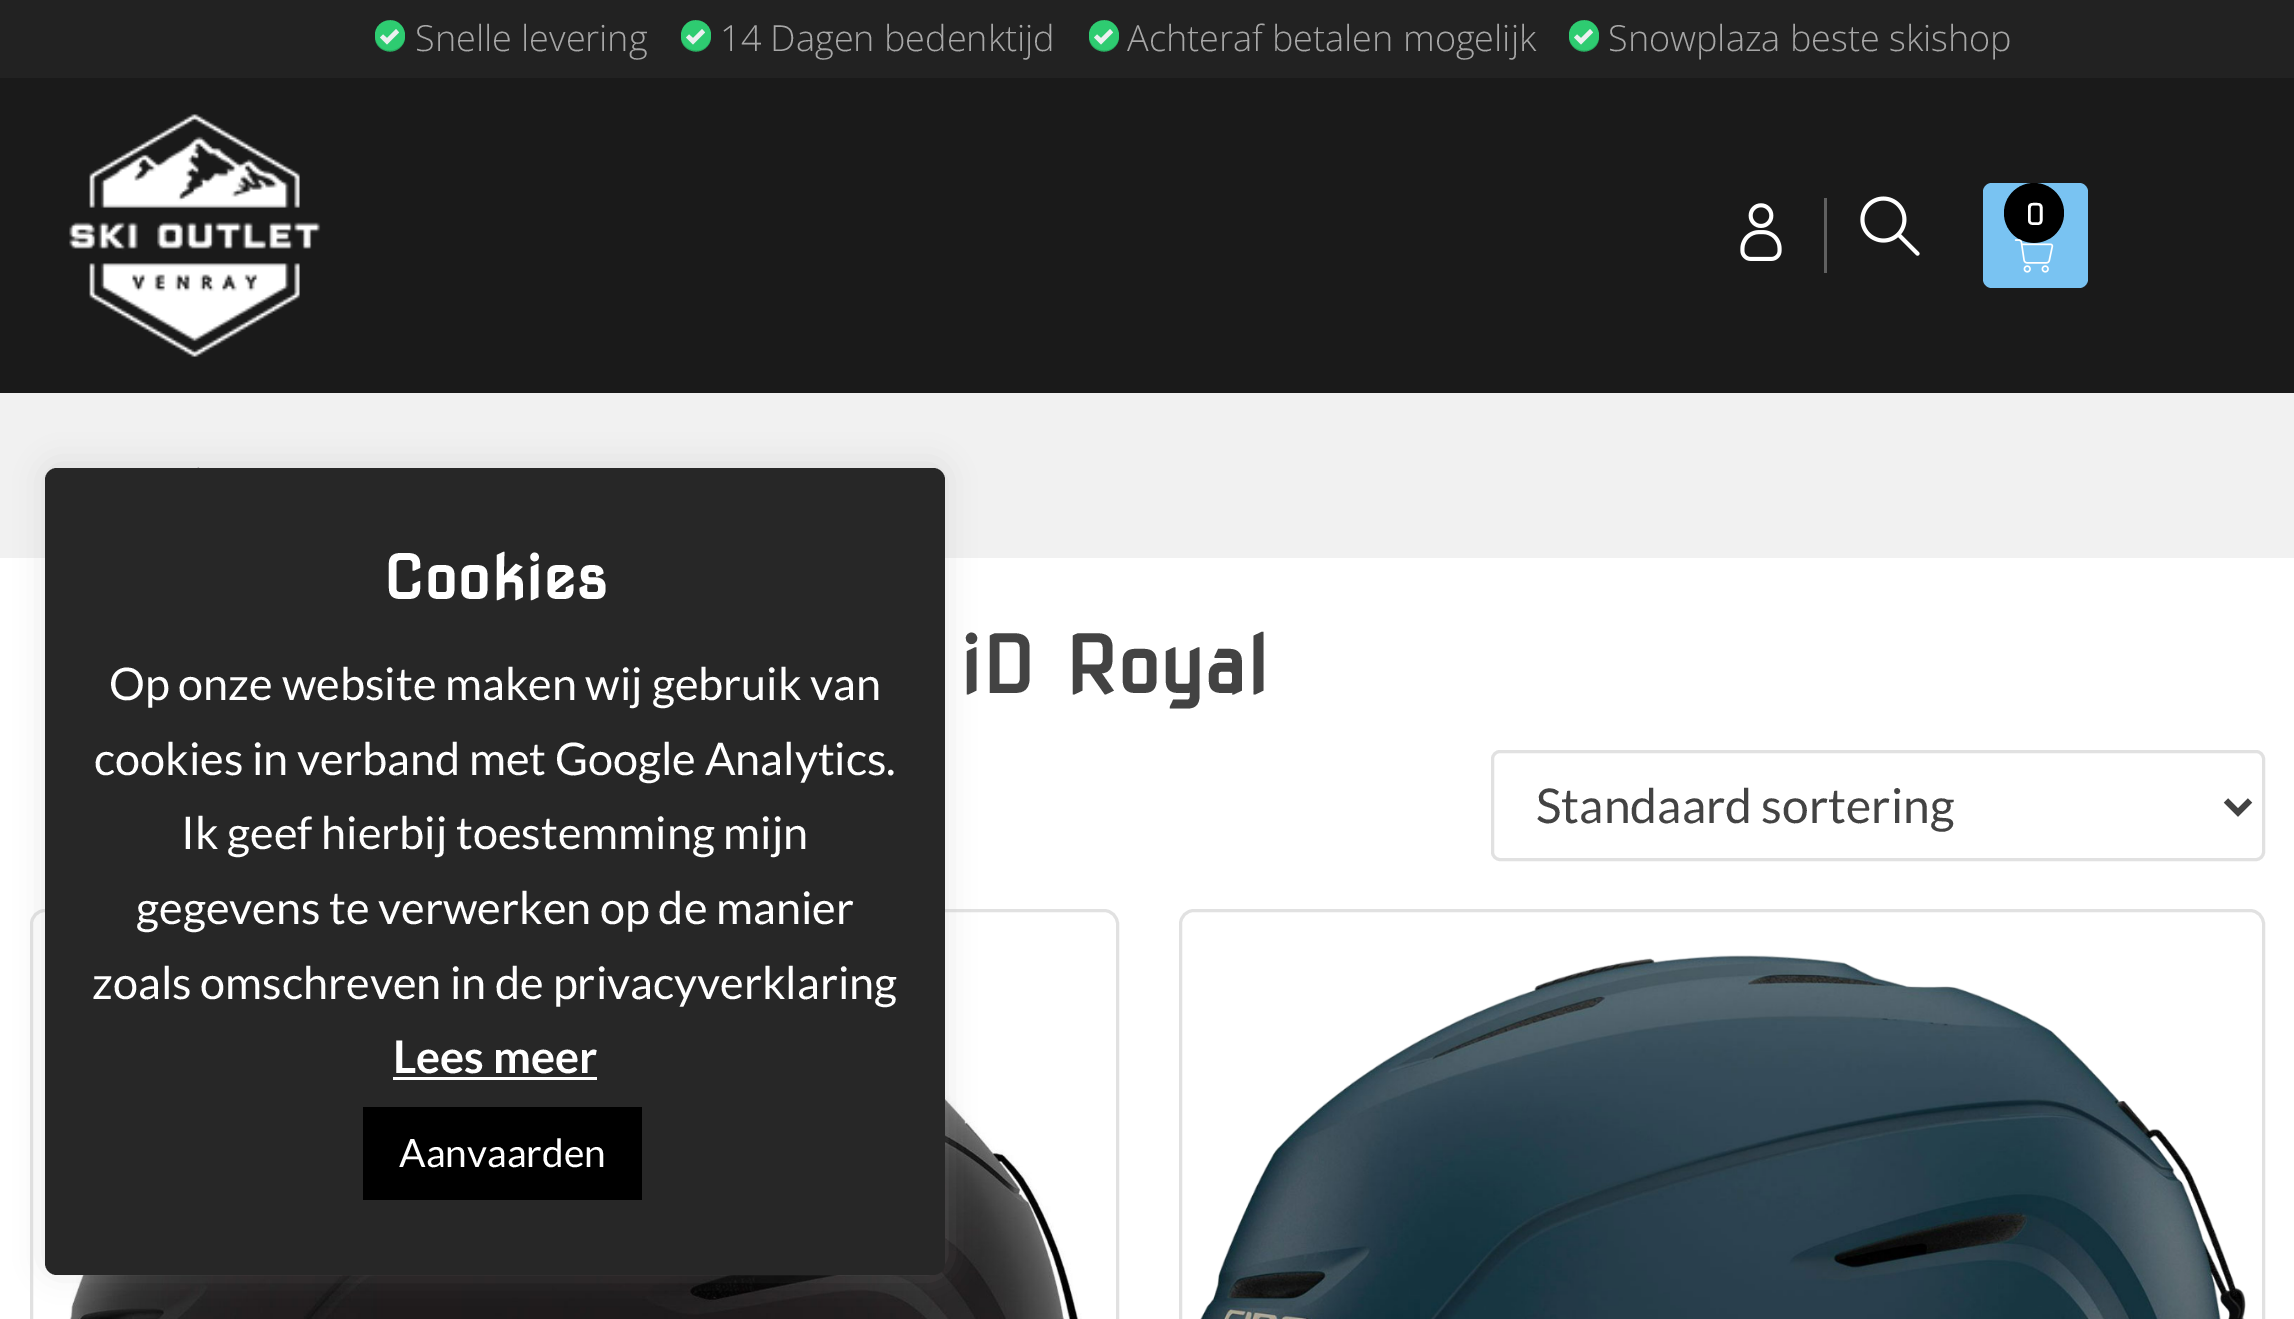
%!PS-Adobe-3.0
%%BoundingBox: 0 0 2294 1319
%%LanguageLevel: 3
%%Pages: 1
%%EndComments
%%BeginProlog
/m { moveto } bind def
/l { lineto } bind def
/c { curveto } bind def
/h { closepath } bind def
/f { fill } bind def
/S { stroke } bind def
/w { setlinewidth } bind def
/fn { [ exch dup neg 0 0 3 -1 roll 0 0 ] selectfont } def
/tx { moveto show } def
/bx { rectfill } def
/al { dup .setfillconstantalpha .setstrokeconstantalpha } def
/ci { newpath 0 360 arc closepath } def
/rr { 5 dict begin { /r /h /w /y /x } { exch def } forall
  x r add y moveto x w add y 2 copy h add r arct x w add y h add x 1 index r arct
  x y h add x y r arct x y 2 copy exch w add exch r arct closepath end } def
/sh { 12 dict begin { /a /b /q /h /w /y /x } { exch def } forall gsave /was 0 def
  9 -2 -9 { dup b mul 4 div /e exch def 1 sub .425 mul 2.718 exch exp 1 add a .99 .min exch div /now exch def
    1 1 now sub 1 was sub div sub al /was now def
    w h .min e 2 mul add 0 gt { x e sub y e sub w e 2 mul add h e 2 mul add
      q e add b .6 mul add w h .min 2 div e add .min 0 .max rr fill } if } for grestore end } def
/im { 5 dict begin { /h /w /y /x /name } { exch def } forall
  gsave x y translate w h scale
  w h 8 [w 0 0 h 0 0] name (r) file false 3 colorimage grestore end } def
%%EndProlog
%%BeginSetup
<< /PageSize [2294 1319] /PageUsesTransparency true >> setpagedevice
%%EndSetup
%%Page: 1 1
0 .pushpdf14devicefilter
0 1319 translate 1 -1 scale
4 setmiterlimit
1 setgray
0 0 2294 1319 bx
0.133 setgray
0 0 2294 78 bx
/OpenSans-Light 36 fn
0.655 setgray
(Snelle levering) 415 51 tx
0.153 0.682 0.376 setrgbcolor
405 37 m 405 40 404 43 402 45.5 c 393.5 57 375 51 375 37 c 375 34 376 31 377.5 28.5 c 385.5 16 405 22 405 37 c h f
0.18 0.8 0.443 setrgbcolor
405 35 m 405 50 385.5 56 377.5 43.5 c 376 41 375 38 375 35 c 375 20.5 394.5 14.5 402.5 27 c 404 29.5 405 32.5 405 35 c h f
0.925 0.941 0.945 setrgbcolor
396 29 m 387 38 l 383 34.5 l 380 37.5 l 387 44.5 l 399 32.5 l h f
0.655 setgray
(14 Dagen bedenktijd) 720 51 tx
0.153 0.682 0.376 setrgbcolor
711 37 m 711 40 710 43 708 45.5 c 699.5 57 681 51 681 37 c 681 34 682 31 683.5 28.5 c 691.5 16 711 22 711 37 c h f
0.18 0.8 0.443 setrgbcolor
711 35 m 711 38 710 41 708.5 43.5 c 700.5 56 681 50 681 35 c 681 32.5 682 29.5 683.5 27 c 691.5 14.5 711 20.5 711 35 c h f
0.925 0.941 0.945 setrgbcolor
702 29 m 693 38 l 689 34.5 l 686 37.5 l 693 44.5 l 705 32.5 l h f
0.655 setgray
(Achteraf betalen mogelijk) 1127 51 tx
0.153 0.682 0.376 setrgbcolor
1119 37 m 1119 40 1118 43 1116 45.5 c 1107.5 57 1089 51 1089 37 c 1089 22 1108.5 16 1116.5 28.5 c 1118 31 1119 34 1119 37 c h f
0.18 0.8 0.443 setrgbcolor
1119 35 m 1119 38 1118 41 1116.5 43.5 c 1108.5 56 1089 50 1089 35 c 1089 20.5 1108.5 14.5 1116.5 27 c 1118 29.5 1119 32.5 1119 35 c h f
0.925 0.941 0.945 setrgbcolor
1110 29 m 1101 38 l 1097 34.5 l 1094 37.5 l 1101 44.5 l 1113 32.5 l h f
0.655 setgray
(Snowplaza beste skishop) 1608 51 tx
0.153 0.682 0.376 setrgbcolor
1599 37 m 1599 51 1580.5 57 1572 45.5 c 1570 43 1569 40 1569 37 c 1569 22 1588.5 16 1596.5 28.5 c 1598 31 1599 34 1599 37 c h f
0.18 0.8 0.443 setrgbcolor
1599 35 m 1599 38 1598 41 1596.5 43.5 c 1588.5 56 1569 50 1569 35 c 1569 20.5 1588.5 14.5 1596.5 27 c 1598 29.5 1599 32.5 1599 35 c h f
0.925 0.941 0.945 setrgbcolor
1590 29 m 1581 38 l 1577 34.5 l 1574 37.5 l 1581 44.5 l 1593 32.5 l h f
0.102 setgray
0 78 2294 315 bx
(image0.raw) 69 114 252 243 im
0.376 setgray
1824 198 3 75 bx
(image1.raw) 1740 203 42 58 im
(image2.raw) 1860 196 60 60 im
0.475 0.765 0.949 setrgbcolor
1983 183 105 105 9 rr f
0 setgray
2034 213 30 ci f
/NovaSquare-Regular 30 fn
1 setgray
(0) 2025 225 tx
(image3.raw) 2014 239 40 34 im
0.945 setgray
0 393 2294 165 bx
(image4.raw) 197 467 3 1 im
/NovaSquare-Bold 78 fn
0.263 setgray
(iD Royal) 959 693 tx
0.882 setgray
3 w
1492.5 751.5 771 108 7.5 rr S
0.263 setgray
6 w
2226 800.5 m 2238 812.5 l 2250 800.5 l S
/Lato-Regular 48 fn
(Standaard sortering) 1536 823 tx
0.882 setgray
3 w
31.5 910.5 1086 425 13.5 rr S
(image5.raw) 69 980 1013 339 im
1180.5 910.5 1083 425 13.5 rr S
(image6.raw) 1200 955 1046 364 im
0.675 0.671 0.671 setrgbcolor
45 465 900 807 12 15 0.3 sh
0.153 setgray
45 468 900 807 12 rr f
/NovaSquare-Bold 60 fn
1 setgray
(Cookies) 383 599 tx
/Lato-Regular 45 fn
(Op onze website maken wij gebruik van) 109 700 tx
(cookies in verband met Google Analytics.) 94 775 tx
(Ik geef hierbij toestemming mijn) 181 849 tx
(gegevens te verwerken op de manier) 136 924 tx
(zoals omschreven in de privacyverklaring) 92 999 tx
/Lato-Bold 45 fn
(Lees meer) 393 1073 tx
393 1077 204 3 bx
0 setgray
363 1107 279 93 bx
/Lato-Regular 39 fn
1 setgray
(Aanvaarden) 399 1167 tx
.poppdf14devicefilter showpage
%%EOF
